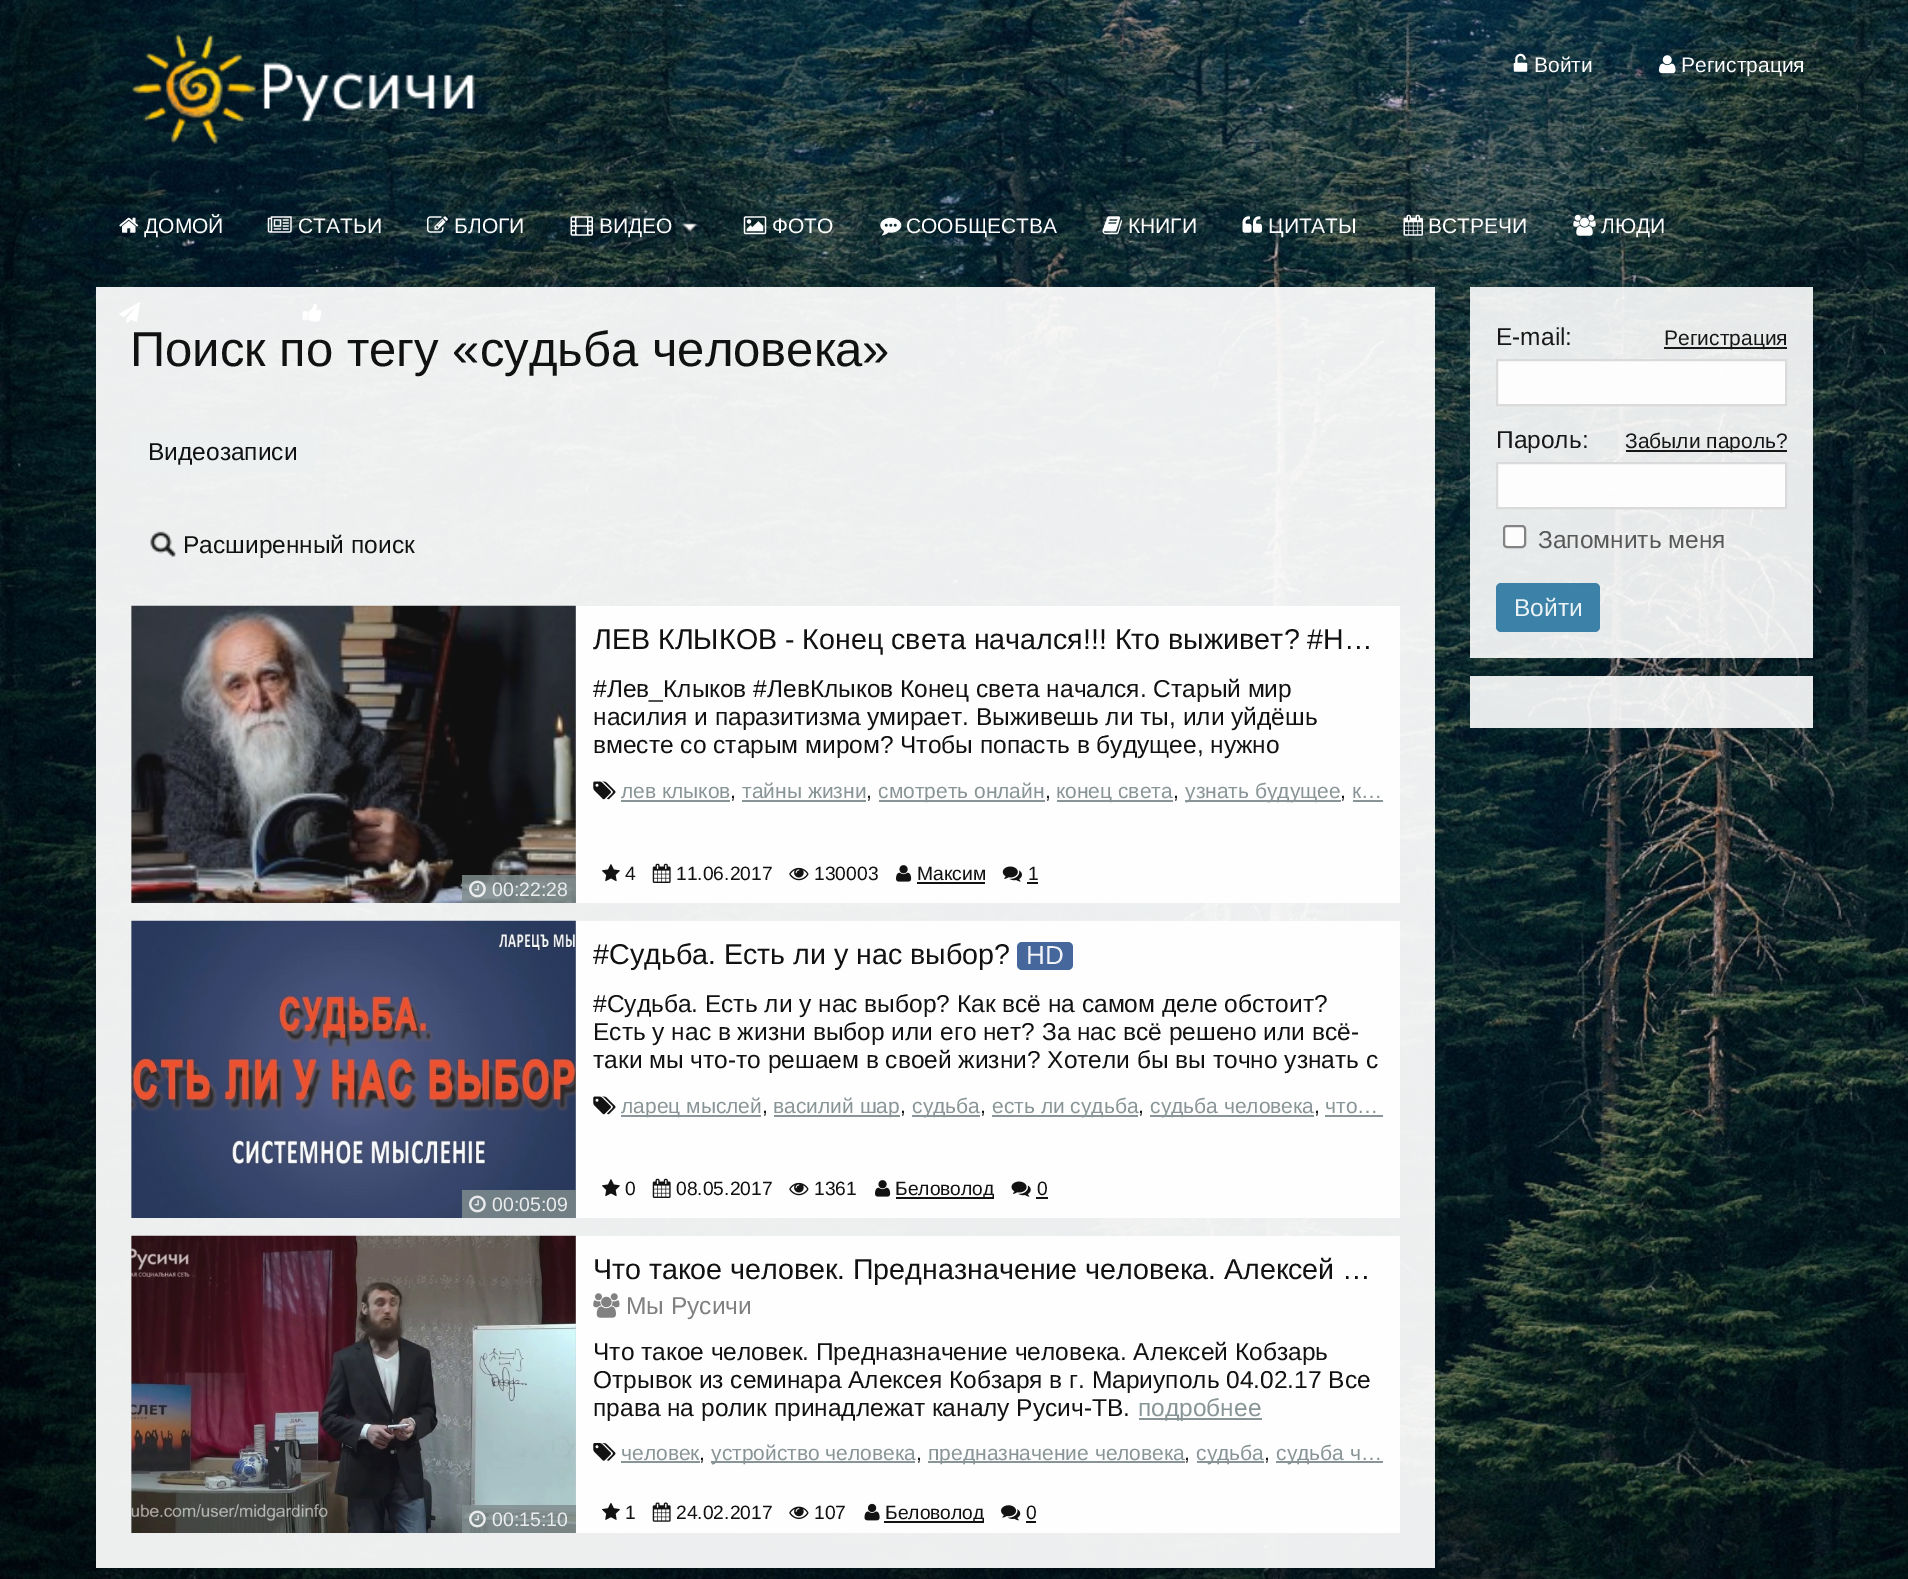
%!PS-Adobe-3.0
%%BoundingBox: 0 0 1908 1579
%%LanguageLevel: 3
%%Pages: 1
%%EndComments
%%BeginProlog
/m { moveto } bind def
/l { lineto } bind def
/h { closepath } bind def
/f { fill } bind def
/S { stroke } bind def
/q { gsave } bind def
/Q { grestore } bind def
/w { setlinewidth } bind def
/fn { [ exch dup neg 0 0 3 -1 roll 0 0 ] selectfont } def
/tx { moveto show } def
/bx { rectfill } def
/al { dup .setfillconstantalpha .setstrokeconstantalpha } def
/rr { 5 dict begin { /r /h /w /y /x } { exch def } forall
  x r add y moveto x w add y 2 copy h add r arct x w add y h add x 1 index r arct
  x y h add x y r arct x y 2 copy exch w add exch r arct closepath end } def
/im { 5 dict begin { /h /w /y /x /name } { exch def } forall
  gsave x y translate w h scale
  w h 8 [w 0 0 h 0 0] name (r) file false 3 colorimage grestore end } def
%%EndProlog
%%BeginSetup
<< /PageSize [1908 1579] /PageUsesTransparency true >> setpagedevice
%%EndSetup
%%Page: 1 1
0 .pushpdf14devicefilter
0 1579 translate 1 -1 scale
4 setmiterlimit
1 setgray
0 0 1908 1579 bx
(image0.raw) 0 0 1908 1579 im
(image1.raw) 132 34 343 110 im
(image2.raw) 1513 53 15 19 im
/LiberationSans-Regular 21 fn
0.992 setgray
(Войти) 1534 72 tx
(image3.raw) 1659 55 17 19 im
(Регистрация) 1681 72 tx
(image4.raw) 119 217 20 16 im
(ДОМОЙ) 144 233 tx
(image5.raw) 267 216 25 17 im
(СТАТЬИ) 298 233 tx
(image6.raw) 427 216 21 17 im
(БЛОГИ) 454 233 tx
(image7.raw) 682 223 15 10 im
(image8.raw) 570 216 23 20 im
(ВИДЕО) 599 233 tx
(image9.raw) 743 216 24 19 im
(ФОТО) 772 233 tx
(image10.raw) 880 217 22 19 im
(СООБЩЕСТВА) 906 233 tx
(image11.raw) 1102 216 20 19 im
(КНИГИ) 1128 233 tx
(image12.raw) 1242 216 20 17 im
(ЦИТАТЫ) 1268 233 tx
(image13.raw) 1403 214 20 22 im
(ВСТРЕЧИ) 1428 233 tx
(image14.raw) 1573 214 23 22 im
(ЛЮДИ) 1601 233 tx
(image15.raw) 119 302 21 22 im
(image16.raw) 302 303 20 19 im
0.93 al
1 setgray
96 287 1339 1281 bx
/LiberationSans-Regular 49 fn
1 al
0.067 setgray
(Поиск по тегу «судьба человека») 130 366 tx
0.93 al
0.925 0.941 0.945 setrgbcolor
131 431 184 42 5 rr f
/LiberationSans-Regular 24.5 fn
1 al
0.067 setgray
(Видеозаписи) 148 460 tx
(image17.raw) 150 531 26 26 im
(Расширенный поиск) 183 553 tx
0.93 al
1 setgray
576 606 824 297 bx
/LiberationSans-Regular 28.65 fn
1 al
0.067 setgray
(ЛЕВ КЛЫКОВ - Конец света начался!!! Кто выживет? #Н…) 593 649 tx
/LiberationSans-Regular 24.5 fn
(#Лев_Клыков #ЛевКлыков Конец света начался. Старый мир) 593 697 tx
(насилия и паразитизма умирает. Выживешь ли ты, или уйдёшь) 593 725 tx
(вместе со старым миром? Чтобы попасть в будущее, нужно) 593 753 tx
(image18.raw) 593 781 23 19 im
/LiberationSans-Regular 21 fn
0.533 0.58 0.584 setrgbcolor
(лев клыков) 621 798 tx
621 800 109 2 bx
0.067 setgray
(,) 730 798 tx
0.533 0.58 0.584 setrgbcolor
(тайны жизни) 742 798 tx
742 800 124 2 bx
0.067 setgray
(,) 866 798 tx
0.533 0.58 0.584 setrgbcolor
879 800 166 2 bx
(смотреть онлайн) 878 798 tx
0.067 setgray
(,) 1045 798 tx
0.533 0.58 0.584 setrgbcolor
1057 800 116 2 bx
(конец света) 1056 798 tx
0.067 setgray
(,) 1173 798 tx
0.533 0.58 0.584 setrgbcolor
1185 800 156 2 bx
(узнать будущее) 1185 798 tx
0.067 setgray
(,) 1340 798 tx
0.533 0.58 0.584 setrgbcolor
(к…) 1352 798 tx
1353 800 30 2 bx
(image19.raw) 602 864 18 18 im
/LiberationSans-Regular 19.25 fn
0.067 setgray
(4) 625 880 tx
(image20.raw) 652 863 19 20 im
(11.06.2017) 676 880 tx
(image21.raw) 789 867 20 14 im
(130003) 814 880 tx
(image22.raw) 896 865 16 17 im
(Максим) 917 880 tx
0.071 setgray
917 882 68 2 bx
(image23.raw) 1002 866 20 16 im
0.067 setgray
(1) 1028 880 tx
0.071 setgray
1027 882 11 2 bx
0.93 al
0.8 setgray
131 606 445 297 bx
1 al
(image24.raw) 131 605 445 298 im
0.84 al
0.498 0.549 0.553 setrgbcolor
462 875 114 28 bx
1 al
(image25.raw) 469 880 17 18 im
/LiberationSans-Regular 19.5 fn
0.918 0.925 0.925 setrgbcolor
(00:22:28) 492 896 tx
0.93 al
1 setgray
576 921 824 297 bx
q
593 938 790 33 rectclip
/LiberationSans-Regular 28.65 fn
1 al
0.067 setgray
(#Судьба. Есть ли у нас выбор?) 593 964 tx
Q
1 al
0.275 0.404 0.608 setrgbcolor
1017 942 56 28 5 rr f
/LiberationSans-Regular 26 fn
0.949 0.957 0.973 setrgbcolor
(HD) 1026 964 tx
/LiberationSans-Regular 24.5 fn
0.067 setgray
(#Судьба. Есть ли у нас выбор? Как всё на самом деле обстоит?) 593 1012 tx
(Есть у нас в жизни выбор или его нет? За нас всё решено или всё-) 593 1040 tx
(таки мы что-то решаем в своей жизни? Хотели бы вы точно узнать с) 593 1068 tx
(image26.raw) 593 1096 23 19 im
0.533 0.58 0.584 setrgbcolor
621 1115 140 2 bx
/LiberationSans-Regular 21 fn
(ларец мыслей) 621 1113 tx
0.067 setgray
(,) 762 1113 tx
0.533 0.58 0.584 setrgbcolor
774 1115 126 2 bx
(василий шар) 773 1113 tx
0.067 setgray
(,) 900 1113 tx
0.533 0.58 0.584 setrgbcolor
912 1115 68 2 bx
(судьба) 912 1113 tx
0.067 setgray
(,) 980 1113 tx
0.533 0.58 0.584 setrgbcolor
992 1115 146 2 bx
(есть ли судьба) 992 1113 tx
0.067 setgray
(,) 1138 1113 tx
0.533 0.58 0.584 setrgbcolor
1150 1115 164 2 bx
(судьба человека) 1150 1113 tx
0.067 setgray
(,) 1314 1113 tx
0.533 0.58 0.584 setrgbcolor
(что…) 1325 1113 tx
1325 1115 58 2 bx
(image27.raw) 602 1179 18 18 im
/LiberationSans-Regular 19.25 fn
0.067 setgray
(0) 625 1195 tx
(image28.raw) 652 1178 19 20 im
(08.05.2017) 676 1195 tx
(image29.raw) 789 1182 20 14 im
(1361) 814 1195 tx
(image30.raw) 875 1180 16 17 im
0.071 setgray
896 1197 98 2 bx
0.067 setgray
(Беловолод) 895 1195 tx
(image31.raw) 1011 1181 20 16 im
(0) 1037 1195 tx
0.071 setgray
1036 1197 12 2 bx
0.93 al
0.8 setgray
131 921 445 297 bx
1 al
(image32.raw) 131 920 445 298 im
0.84 al
0.498 0.549 0.553 setrgbcolor
462 1190 114 28 bx
1 al
(image33.raw) 469 1195 17 18 im
/LiberationSans-Regular 19.5 fn
0.918 0.925 0.925 setrgbcolor
(00:05:09) 492 1211 tx
0.93 al
0.8 setgray
131 1236 445 297 bx
1 al
(image34.raw) 131 1235 445 298 im
0.84 al
0.498 0.549 0.553 setrgbcolor
462 1505 114 28 bx
1 al
(image35.raw) 469 1510 17 18 im
0.918 0.925 0.925 setrgbcolor
(00:15:10) 492 1526 tx
0.93 al
1 setgray
576 1236 824 297 bx
/LiberationSans-Regular 28.65 fn
1 al
0.067 setgray
593 1279 m -0.25 0 32 (Что такое человек. Предназначение человека. Алексей …) widthshow
(image36.raw) 593 1293 27 25 im
/LiberationSans-Regular 24.5 fn
0.502 setgray
(Мы Русичи) 626 1314 tx
0.067 setgray
(Что такое человек. Предназначение человека. Алексей Кобзарь) 593 1360 tx
(Отрывок из семинара Алексея Кобзаря в г. Мариуполь 04.02.17 Все) 593 1388 tx
q
593 1337 790 84 rectclip
(права на ролик принадлежат каналу Русич-ТВ.) 593 1416 tx
Q
0.533 0.58 0.584 setrgbcolor
1139 1418 123 2 bx
(подробнее) 1138 1416 tx
(image37.raw) 593 1443 23 18 im
/LiberationSans-Regular 21 fn
(человек) 621 1460 tx
621 1461 79 2 bx
0.067 setgray
(,) 699 1460 tx
0.533 0.58 0.584 setrgbcolor
711 1461 204 2 bx
(устройство человека) 711 1460 tx
0.067 setgray
(,) 916 1460 tx
0.533 0.58 0.584 setrgbcolor
928 1461 257 2 bx
(предназначение человека) 928 1460 tx
0.067 setgray
(,) 1184 1460 tx
0.533 0.58 0.584 setrgbcolor
1197 1461 67 2 bx
(судьба) 1196 1460 tx
0.067 setgray
(,) 1264 1460 tx
0.533 0.58 0.584 setrgbcolor
1276 1461 107 2 bx
(судьба ч…) 1276 1460 tx
(image38.raw) 602 1502 18 18 im
/LiberationSans-Regular 19.25 fn
0.067 setgray
(1) 625 1519 tx
(image39.raw) 652 1502 19 20 im
(24.02.2017) 676 1519 tx
(image40.raw) 789 1506 20 13 im
(107) 814 1519 tx
(image41.raw) 864 1503 16 18 im
0.071 setgray
884 1521 100 2 bx
0.067 setgray
(Беловолод) 885 1519 tx
(image42.raw) 1001 1505 20 16 im
(0) 1026 1519 tx
0.071 setgray
1026 1521 10 2 bx
0.9 al
1 setgray
1470 287 343 371 bx
/LiberationSans-Regular 24.5 fn
1 al
0.09 0.09 0.094 setrgbcolor
(E-mail:) 1496 345 tx
0.9 al
0 setgray
1664 347 123 2 bx
/LiberationSans-Regular 21 fn
1 al
0.09 0.09 0.094 setrgbcolor
(Регистрация) 1664 345 tx
0.9 al
1 setgray
1497 360 m 1786 360 l 1786 405 l 1497 405 l h f
1 al
0.855 setgray
2 w
1497 360 m 1786 360 l 1786 405 l 1497 405 l h S
/LiberationSans-Regular 24.5 fn
0.09 0.09 0.094 setrgbcolor
(Пароль:) 1496 448 tx
0.9 al
0 setgray
1626 450 161 2 bx
/LiberationSans-Regular 21 fn
1 al
0.09 0.09 0.094 setrgbcolor
(Забыли пароль?) 1625 448 tx
0.9 al
1 setgray
1497 463 m 1786 463 l 1786 508 l 1497 508 l h f
1 al
0.855 setgray
1497 463 m 1786 463 l 1786 508 l 1497 508 l h S
0.9 al
1 setgray
1503 525 23 23 4 rr f
0.463 setgray
1504 526 21 21 3 rr S
/LiberationSans-Regular 24.5 fn
1 al
0.345 setgray
(Запомнить меня) 1538 548 tx
0.9 al
0.161 0.467 0.631 setrgbcolor
1496 583 104 49 5 rr f
1 al
0.925 0.953 0.965 setrgbcolor
(Войти) 1514 616 tx
0.9 al
1 setgray
1470 676 343 52 bx
.poppdf14devicefilter showpage
%%EOF
